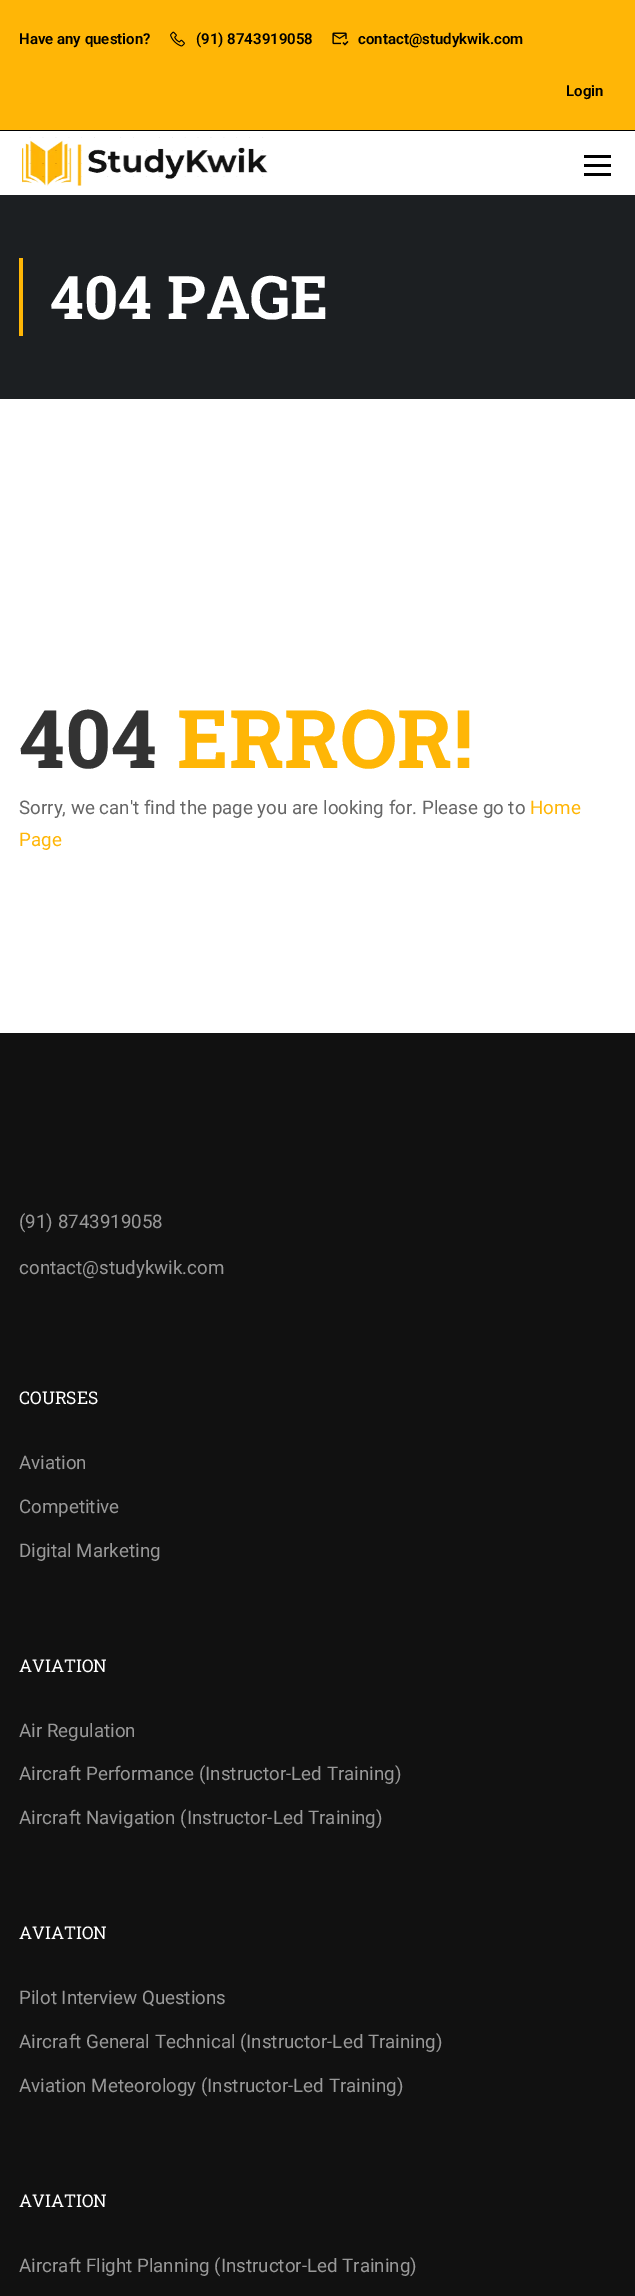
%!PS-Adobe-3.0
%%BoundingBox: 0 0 635 2296
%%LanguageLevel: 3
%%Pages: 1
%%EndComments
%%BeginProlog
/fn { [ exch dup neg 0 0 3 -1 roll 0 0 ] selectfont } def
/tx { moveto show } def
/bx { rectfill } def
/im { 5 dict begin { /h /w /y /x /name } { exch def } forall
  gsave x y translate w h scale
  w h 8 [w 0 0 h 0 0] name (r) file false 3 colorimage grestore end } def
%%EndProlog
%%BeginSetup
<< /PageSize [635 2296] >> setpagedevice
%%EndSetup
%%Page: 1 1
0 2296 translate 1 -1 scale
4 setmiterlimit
1 setgray
0 0 635 2296 bx
1 0.714 0.024 setrgbcolor
0 0 635 130 bx
0 setgray
0 130 635 1 bx
/Roboto-SemiBold 15 fn
(Have any question?) 19 44 tx
(image0.raw) 170 31 15 16 im
(\(91\) 8743919058) 196 44 tx
(image1.raw) 332 32 17 14 im
(contact@studykwik.com) 358 44 tx
(Login) 566 96 tx
(image2.raw) 22 137 246 49 im
584 155 27 3 bx
584 164 27 3 bx
584 173 27 3 bx
0.11 0.122 0.133 setrgbcolor
0 195 635 204 bx
1 0.714 0.024 setrgbcolor
19 258 4 78 bx
/RobotoSlab-Bold 60 fn
1 setgray
(404 PAGE) 50 319 tx
/RobotoSlab-Bold 81 fn
0.2 setgray
(404) 19 768 tx
1 0.714 0.024 setrgbcolor
(ERROR!) 177 768 tx
/Roboto-Regular 18.75 fn
0.4 setgray
(Sorry, we can't find the page you are looking for. Please go to) 19 814 tx
1 0.714 0.024 setrgbcolor
(Home) 530 814 tx
(Page) 19 846 tx
0.067 setgray
0 1033 635 1263 bx
0.6 setgray
(\(91\) 8743919058) 19 1228 tx
(contact@studykwik.com) 19 1274 tx
/RobotoSlab-Regular 17.5 fn
1 setgray
(COURSES) 19 1404 tx
/Roboto-Regular 18.75 fn
0.6 setgray
(Aviation) 19 1469 tx
(Competitive) 19 1513 tx
(Digital Marketing) 19 1557 tx
/RobotoSlab-Regular 17.5 fn
1 setgray
(AVIATION) 19 1672 tx
/Roboto-Regular 18.75 fn
0.6 setgray
(Air Regulation) 19 1737 tx
(Aircraft Performance \(Instructor-Led Training\)) 19 1780 tx
(Aircraft Navigation \(Instructor-Led Training\)) 19 1824 tx
/RobotoSlab-Regular 17.5 fn
1 setgray
(AVIATION) 19 1939 tx
/Roboto-Regular 18.75 fn
0.6 setgray
(Pilot Interview Questions) 19 2004 tx
(Aircraft General Technical \(Instructor-Led Training\)) 19 2048 tx
(Aviation Meteorology \(Instructor-Led Training\)) 19 2092 tx
/RobotoSlab-Regular 17.5 fn
1 setgray
(AVIATION) 19 2207 tx
/Roboto-Regular 18.75 fn
0.6 setgray
(Aircraft Flight Planning \(Instructor-Led Training\)) 19 2272 tx
showpage
%%EOF
